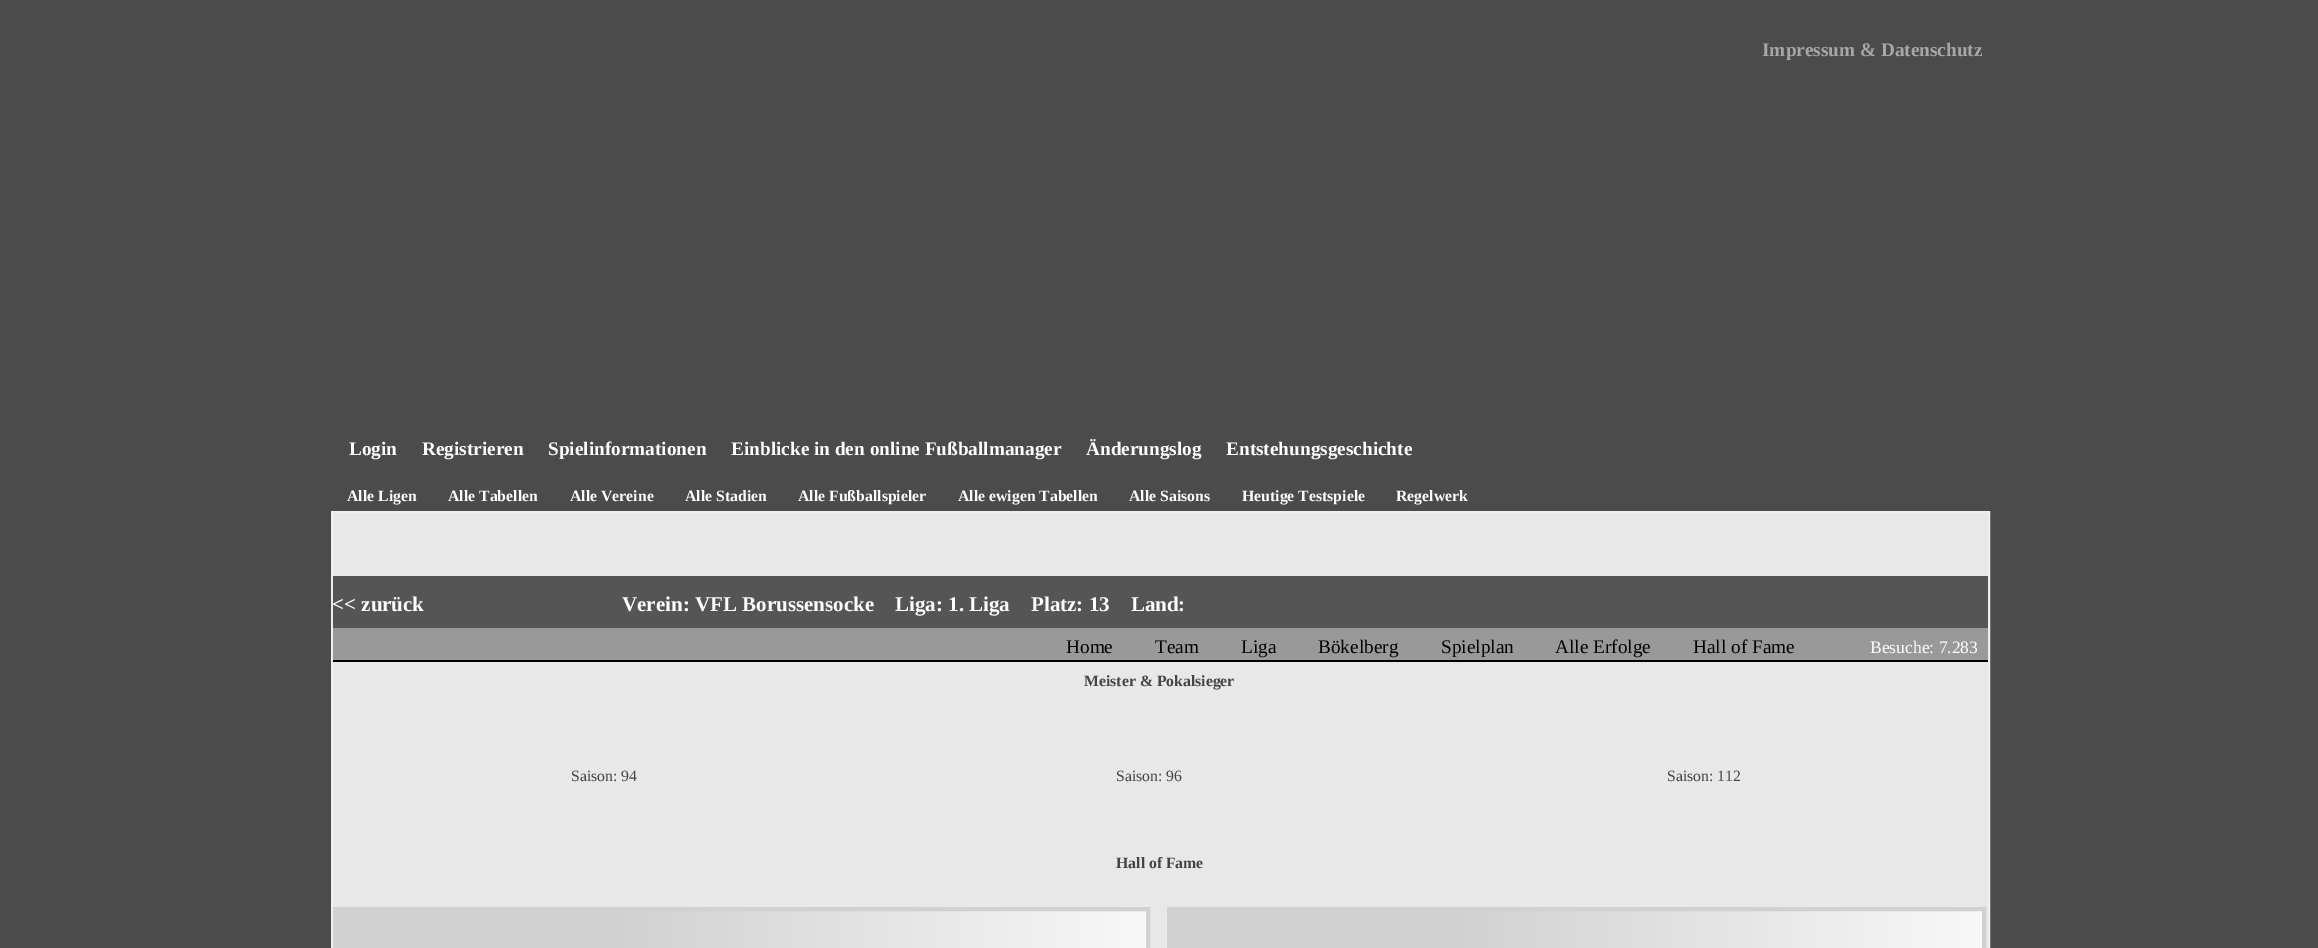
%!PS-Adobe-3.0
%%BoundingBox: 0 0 2318 948
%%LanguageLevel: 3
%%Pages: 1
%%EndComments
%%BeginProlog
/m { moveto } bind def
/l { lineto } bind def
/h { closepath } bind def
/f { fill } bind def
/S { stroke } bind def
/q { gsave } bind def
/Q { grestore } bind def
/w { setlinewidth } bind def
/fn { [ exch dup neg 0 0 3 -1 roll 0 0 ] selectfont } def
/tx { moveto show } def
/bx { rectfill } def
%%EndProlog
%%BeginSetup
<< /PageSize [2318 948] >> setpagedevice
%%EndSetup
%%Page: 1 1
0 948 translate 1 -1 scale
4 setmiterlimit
0.294 setgray
0 0 2318 948 bx
/LiberationSerif-Bold 19.25 fn
0.655 setgray
(Impressum & Datenschutz) 1762 56 tx
0.996 setgray
(Login) 349 455 tx
(Registrieren) 422 455 tx
(Spielinformationen) 548 455 tx
(Einblicke in den online Fußballmanager) 731 455 tx
(Änderungslog) 1086 455 tx
(Entstehungsgeschichte) 1226 455 tx
/LiberationSerif-Bold 15.75 fn
(Alle Ligen) 347 501 tx
(Alle Tabellen) 448 501 tx
(Alle Vereine) 570 501 tx
(Alle Stadien) 685 501 tx
(Alle Fußballspieler) 798 501 tx
(Alle ewigen Tabellen) 958 501 tx
(Alle Saisons) 1129 501 tx
(Heutige Testspiele) 1242 501 tx
(Regelwerk) 1396 501 tx
0.91 setgray
332 512 m 1989 512 l 1989 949 l 332 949 l h q f Q
0.937 setgray
2 w
S
0.333 setgray
333 576 1655 52 bx
/LiberationSerif-Bold 21 fn
0.996 setgray
(<< zurück) 332 611 tx
(Verein: VFL Borussensocke    Liga: 1. Liga    Platz: 13    Land:) 622 611 tx
0.6 setgray
333 628 1655 32 bx
/LiberationSerif-Regular 19.25 fn
0 setgray
(Home) 1066 653 tx
(Team) 1155 653 tx
(Liga) 1241 653 tx
(Bökelberg) 1318 653 tx
(Spielplan) 1441 653 tx
(Alle Erfolge) 1555 653 tx
(Hall of Fame) 1693 653 tx
/LiberationSerif-Regular 17.5 fn
0.996 setgray
(Besuche: 7.283) 1870 653 tx
0 setgray
333 660 1655 2 bx
/LiberationSerif-Bold 15.75 fn
0.267 setgray
(Meister & Pokalsieger) 1084 686 tx
/LiberationSerif-Regular 15.75 fn
(Saison: 94) 571 781 tx
(Saison: 96) 1116 781 tx
(Saison: 112) 1667 781 tx
/LiberationSerif-Bold 15.75 fn
(Hall of Fame) 1116 868 tx
q 337 911 m 1146 911 l 1146 948 l 337 948 l h clip newpath
<< /ShadingType 2 /ColorSpace /DeviceRGB /Coords [336 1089 1146 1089] /Extend [true true] /Function << /FunctionType 3 /Domain [0 1] /Functions [<< /FunctionType 2 /Domain [0 1] /C0 [0.82 0.82 0.82] /C1 [0.82 0.82 0.82] /N 1 >> << /FunctionType 2 /Domain [0 1] /C0 [0.82 0.82 0.82] /C1 [0.973 0.973 0.973] /N 1 >>] /Bounds [0.35] /Encode [0 1 0 1] >> >> shfill Q
0.82 setgray
4 w
335 909 813 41 rectstroke
q 1171 911 m 1982 911 l 1982 948 l 1171 948 l h clip newpath
<< /ShadingType 2 /ColorSpace /DeviceRGB /Coords [1171 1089 1983 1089] /Extend [true true] /Function << /FunctionType 3 /Domain [0 1] /Functions [<< /FunctionType 2 /Domain [0 1] /C0 [0.82 0.82 0.82] /C1 [0.82 0.82 0.82] /N 1 >> << /FunctionType 2 /Domain [0 1] /C0 [0.82 0.82 0.82] /C1 [0.973 0.973 0.973] /N 1 >>] /Bounds [0.35] /Encode [0 1 0 1] >> >> shfill Q
1169 909 815 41 rectstroke
showpage
%%EOF
